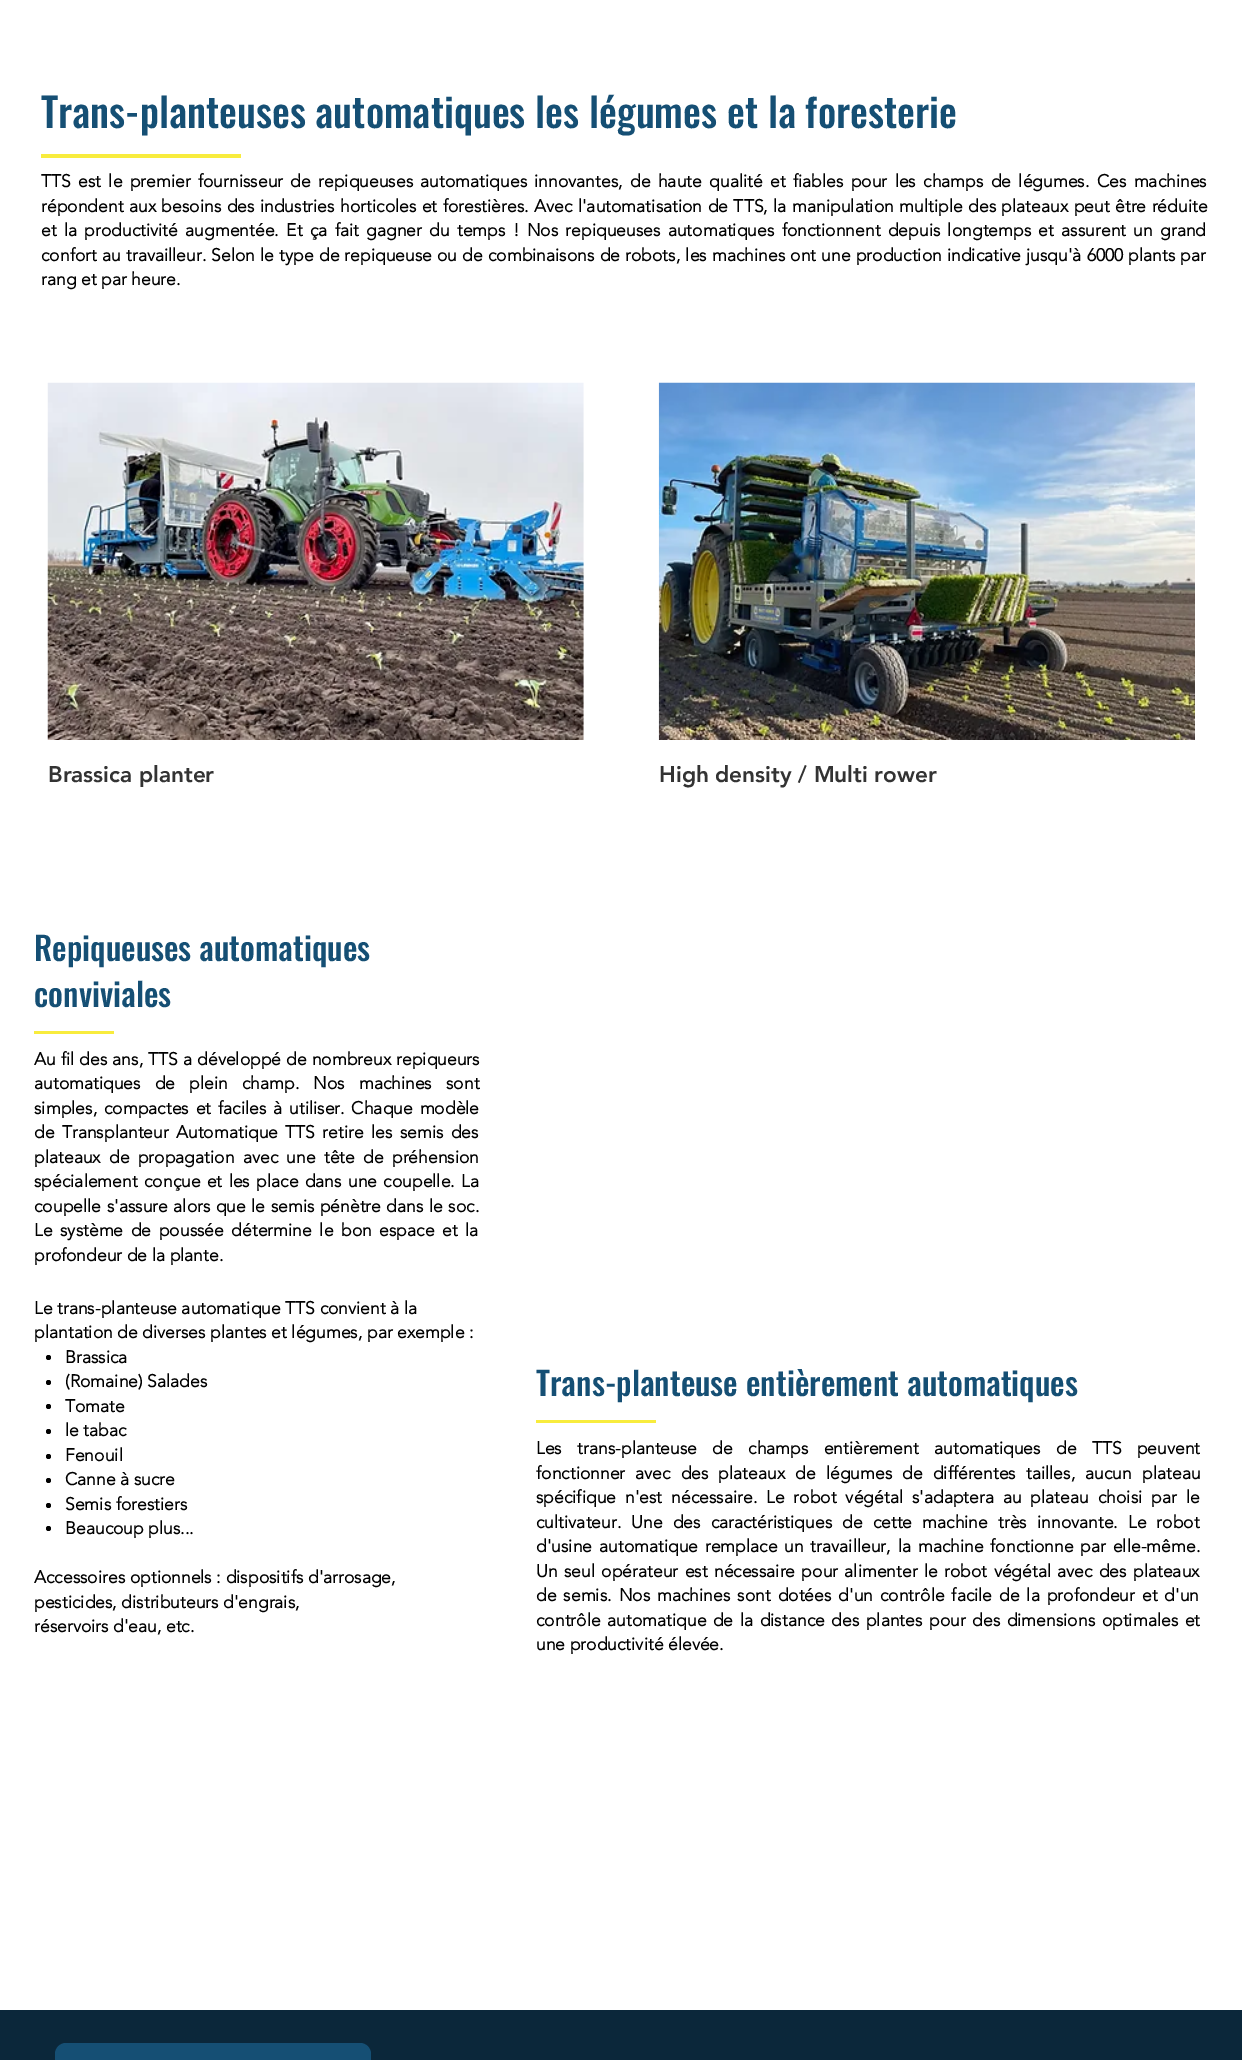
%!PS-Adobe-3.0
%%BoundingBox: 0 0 1242 2060
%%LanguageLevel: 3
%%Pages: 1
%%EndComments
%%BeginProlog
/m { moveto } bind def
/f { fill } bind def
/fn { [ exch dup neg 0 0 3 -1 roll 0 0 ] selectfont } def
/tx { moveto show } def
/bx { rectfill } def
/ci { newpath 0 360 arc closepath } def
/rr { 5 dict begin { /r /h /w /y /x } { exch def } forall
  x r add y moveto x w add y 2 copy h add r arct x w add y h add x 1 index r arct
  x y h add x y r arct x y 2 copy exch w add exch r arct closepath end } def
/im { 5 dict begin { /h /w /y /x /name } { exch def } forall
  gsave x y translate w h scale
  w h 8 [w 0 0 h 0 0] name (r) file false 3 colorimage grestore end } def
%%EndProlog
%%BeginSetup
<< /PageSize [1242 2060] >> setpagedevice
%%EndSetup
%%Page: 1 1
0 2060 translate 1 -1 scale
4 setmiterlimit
1 setgray
0 0 1242 2060 bx
/Oswald-Medium 40 fn
0.082 0.31 0.455 setrgbcolor
(Trans-planteuses automatiques les légumes et la foresterie) 41 128 tx
0.973 0.925 0.239 setrgbcolor
41 154 200 4 bx
/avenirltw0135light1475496-Bold 17.5 fn
0 setgray
41 187 m 2.75 0 32 (TTS est le premier fournisseur de repiqueuses automatiques innovantes, de haute qualité et fiables pour les champs de légumes. Ces machines) widthshow
41 212 m 0.9 0 32 (répondent aux besoins des industries horticoles et forestières. Avec l'automatisation de TTS, la manipulation multiple des plateaux peut être réduite) widthshow
41 236 m 2.75 0 32 (et la productivité augmentée. Et ça fait gagner du temps ! Nos repiqueuses automatiques fonctionnent depuis longtemps et assurent un grand) widthshow
41 261 m 0.6 0 32 (confort au travailleur. Selon le type de repiqueuse ou de combinaisons de robots, les machines ont une production indicative jusqu'à 6000 plants par) widthshow
(rang et par heure.) 41 285 tx
(image0.raw) 47 382 537 358 im
/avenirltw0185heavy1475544-Black 22.5 fn
0.2 setgray
(Brassica planter) 48 782 tx
(image1.raw) 658 382 537 358 im
(High density / Multi rower) 659 782 tx
/Oswald-Medium 32.5 fn
0.082 0.31 0.455 setrgbcolor
(Repiqueuses automatiques) 34 961 tx
(conviviales) 34 1007 tx
0.973 0.925 0.239 setrgbcolor
34 1031 80 3 bx
/avenirltw0135light1475496-Bold 17.5 fn
0 setgray
34 1065 m 0.5 0 32 (Au fil des ans, TTS a développé de nombreux repiqueurs) widthshow
34 1089 m 9.5 0 32 (automatiques de plein champ. Nos machines sont) widthshow
34 1114 m 2.25 0 32 (simples, compactes et faciles à utiliser. Chaque modèle) widthshow
34 1138 m 2.75 0 32 (de Transplanteur Automatique TTS retire les semis des) widthshow
34 1163 m 3.75 0 32 (plateaux de propagation avec une tête de préhension) widthshow
34 1187 m 1.75 0 32 (spécialement conçue et les place dans une coupelle. La) widthshow
34 1212 m 0.9 0 32 (coupelle s'assure alors que le semis pénètre dans le soc.) widthshow
34 1236 m 3 0 32 (Le système de poussée détermine le bon espace et la) widthshow
(profondeur de la plante.) 34 1261 tx
(Le trans-planteuse automatique TTS convient à la) 34 1314 tx
(plantation de diverses plantes et légumes, par exemple :) 34 1338 tx
48.5 1357.5 2.5 ci f
(Brassica) 65 1363 tx
48.5 1382.5 2.5 ci f
(\(Romaine\) Salades) 65 1387 tx
48.5 1406.5 2.5 ci f
(Tomate) 65 1412 tx
48.5 1431.5 2.5 ci f
(le tabac) 65 1436 tx
48.5 1456.5 2.5 ci f
(Fenouil) 65 1461 tx
48.5 1480.5 2.5 ci f
(Canne à sucre) 65 1485 tx
48.5 1505.5 2.5 ci f
(Semis forestiers) 65 1510 tx
48.5 1528.5 2.5 ci f
(Beaucoup plus...) 65 1534 tx
(Accessoires optionnels : dispositifs d'arrosage,) 34 1583 tx
(pesticides, distributeurs d'engrais,) 34 1608 tx
(réservoirs d'eau, etc.) 34 1632 tx
/Oswald-Medium 32.5 fn
0.082 0.31 0.455 setrgbcolor
(Trans-planteuse entièrement automatiques) 536 1396 tx
0.973 0.925 0.239 setrgbcolor
536 1420 120 3 bx
/avenirltw0135light1475496-Bold 17.5 fn
0 setgray
536 1454 m 10.75 0 32 (Les trans-planteuse de champs entièrement automatiques de TTS peuvent) widthshow
536 1479 m 5.5 0 32 (fonctionner avec des plateaux de légumes de différentes tailles, aucun plateau) widthshow
536 1503 m 4.4 0 32 (spécifique n'est nécessaire. Le robot végétal s'adaptera au plateau choisi par le) widthshow
536 1528 m 5.5 0 32 (cultivateur. Une des caractéristiques de cette machine très innovante. Le robot) widthshow
536 1552 m 2.25 0 32 (d'usine automatique remplace un travailleur, la machine fonctionne par elle-même.) widthshow
536 1577 m 1.75 0 32 (Un seul opérateur est nécessaire pour alimenter le robot végétal avec des plateaux) widthshow
536 1601 m 2.4 0 32 (de semis. Nos machines sont dotées d'un contrôle facile de la profondeur et d'un) widthshow
536 1626 m 2 0 32 (contrôle automatique de la distance des plantes pour des dimensions optimales et) widthshow
(une productivité élevée.) 536 1650 tx
0.043 0.153 0.227 setrgbcolor
0 2010 1242 50 bx
0.082 0.31 0.455 setrgbcolor
55 2043 316 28 11 rr f
showpage
%%EOF
